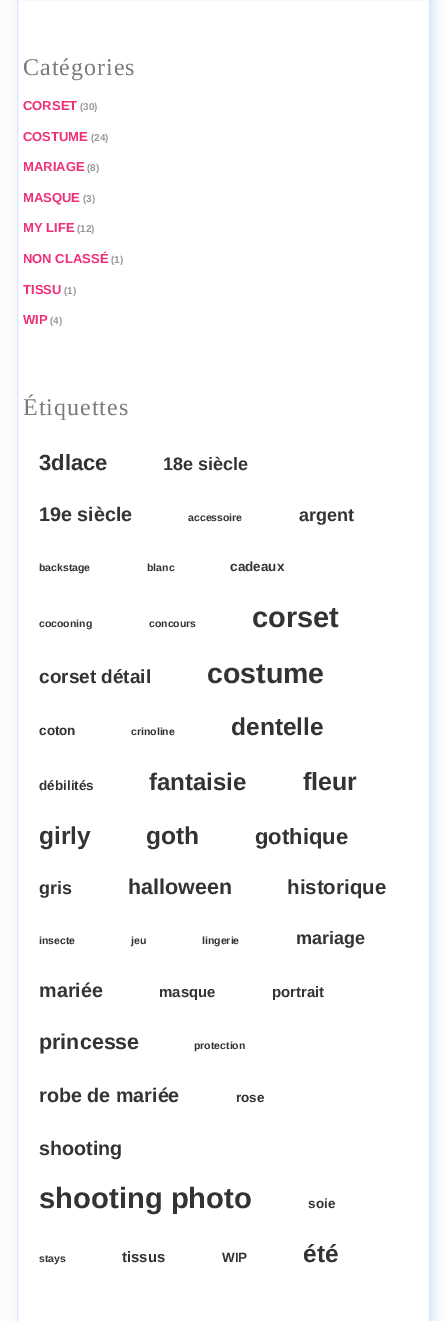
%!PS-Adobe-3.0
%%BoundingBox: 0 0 447 1321
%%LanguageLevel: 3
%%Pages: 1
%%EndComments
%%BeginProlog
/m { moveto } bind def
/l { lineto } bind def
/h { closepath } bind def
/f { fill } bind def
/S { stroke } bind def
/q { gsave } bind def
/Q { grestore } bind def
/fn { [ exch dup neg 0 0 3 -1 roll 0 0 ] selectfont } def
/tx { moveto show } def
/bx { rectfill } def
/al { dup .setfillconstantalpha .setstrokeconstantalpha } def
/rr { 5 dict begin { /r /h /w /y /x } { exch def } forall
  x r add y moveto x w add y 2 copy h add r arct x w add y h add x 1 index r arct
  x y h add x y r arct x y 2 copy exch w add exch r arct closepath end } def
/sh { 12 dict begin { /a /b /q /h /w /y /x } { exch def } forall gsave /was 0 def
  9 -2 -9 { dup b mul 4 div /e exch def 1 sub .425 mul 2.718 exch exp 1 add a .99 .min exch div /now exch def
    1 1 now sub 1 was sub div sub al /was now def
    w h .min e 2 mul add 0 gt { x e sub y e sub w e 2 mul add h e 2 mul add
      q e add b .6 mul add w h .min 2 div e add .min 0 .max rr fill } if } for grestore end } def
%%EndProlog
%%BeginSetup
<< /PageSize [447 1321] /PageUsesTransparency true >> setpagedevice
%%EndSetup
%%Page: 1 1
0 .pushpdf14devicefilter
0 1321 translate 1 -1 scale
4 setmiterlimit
0.988 setgray
0 0 447 1321 bx
0.855 0.898 0.992 setrgbcolor
21 -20 413 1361 5 5 1 sh
1 setgray
17.5 -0.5 m 429.5 -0.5 l 429.5 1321.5 l 17.5 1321.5 l h q f Q
0.855 0.898 0.992 setrgbcolor
S
/LiberationSerif-Regular 24 fn
0.478 setgray
23 75 m 1 0 (Catégories) ashow
/LiberationSans-Bold 13 fn
0.933 0.188 0.475 setrgbcolor
(CORSET) 23 110 tx
/LiberationSans-Bold 10 fn
0.6 setgray
(\(30\)) 80 110 tx
/LiberationSans-Bold 13 fn
0.933 0.188 0.475 setrgbcolor
(COSTUME) 23 141 tx
/LiberationSans-Bold 10 fn
0.6 setgray
(\(24\)) 91 141 tx
/LiberationSans-Bold 13 fn
0.933 0.188 0.475 setrgbcolor
(MARIAGE) 23 171 tx
/LiberationSans-Bold 10 fn
0.6 setgray
(\(8\)) 87 171 tx
/LiberationSans-Bold 13 fn
0.933 0.188 0.475 setrgbcolor
(MASQUE) 23 202 tx
/LiberationSans-Bold 10 fn
0.6 setgray
(\(3\)) 83 202 tx
/LiberationSans-Bold 13 fn
0.933 0.188 0.475 setrgbcolor
(MY LIFE) 23 232 tx
/LiberationSans-Bold 10 fn
0.6 setgray
(\(12\)) 77 232 tx
/LiberationSans-Bold 13 fn
0.933 0.188 0.475 setrgbcolor
(NON CLASSÉ) 23 263 tx
/LiberationSans-Bold 10 fn
0.6 setgray
(\(1\)) 111 263 tx
/LiberationSans-Bold 13 fn
0.933 0.188 0.475 setrgbcolor
(TISSU) 23 294 tx
/LiberationSans-Bold 10 fn
0.6 setgray
(\(1\)) 64 294 tx
/LiberationSans-Bold 13 fn
0.933 0.188 0.475 setrgbcolor
(WIP) 23 324 tx
/LiberationSans-Bold 10 fn
0.6 setgray
(\(4\)) 50 324 tx
/LiberationSerif-Regular 24 fn
0.478 setgray
23 415 m 1 0 (Étiquettes) ashow
/LiberationSans-Bold 22 fn
0.2 setgray
(3dlace) 39 470 tx
/LiberationSans-Bold 18 fn
(18e siècle) 163 470 tx
/LiberationSans-Bold 19.75 fn
(19e siècle) 39 521 tx
/LiberationSans-Bold 10.5 fn
(accessoire) 188 521 tx
/LiberationSans-Bold 18 fn
(argent) 299 521 tx
/LiberationSans-Bold 10.5 fn
(backstage) 39 571 tx
(blanc) 147 571 tx
/LiberationSans-Bold 13.5 fn
(cadeaux) 230 571 tx
/LiberationSans-Bold 10.5 fn
(cocooning) 39 627 tx
(concours) 149 627 tx
/LiberationSans-Bold 29 fn
(corset) 252 627 tx
/LiberationSans-Bold 19 fn
(corset détail) 39 683 tx
/LiberationSans-Bold 28.5 fn
(costume) 207 683 tx
/LiberationSans-Bold 13.5 fn
(coton) 39 735 tx
/LiberationSans-Bold 10.5 fn
(crinoline) 131 735 tx
/LiberationSans-Bold 24.5 fn
(dentelle) 231 735 tx
/LiberationSans-Bold 13.5 fn
(débilités) 39 790 tx
/LiberationSans-Bold 24 fn
(fantaisie) 149 790 tx
/LiberationSans-Bold 25 fn
(fleur) 303 790 tx
/LiberationSans-Bold 24.5 fn
(girly) 39 844 tx
(goth) 146 844 tx
/LiberationSans-Bold 22 fn
(gothique) 255 844 tx
/LiberationSans-Bold 18 fn
(gris) 39 894 tx
/LiberationSans-Bold 21.5 fn
(halloween) 128 894 tx
/LiberationSans-Bold 20.5 fn
(historique) 287 894 tx
/LiberationSans-Bold 10.5 fn
(insecte) 39 944 tx
(jeu) 131 944 tx
(lingerie) 202 944 tx
/LiberationSans-Bold 18 fn
(mariage) 296 944 tx
/LiberationSans-Bold 19.75 fn
(mariée) 39 997 tx
/LiberationSans-Bold 15 fn
(masque) 159 997 tx
(portrait) 272 997 tx
/LiberationSans-Bold 21.5 fn
(princesse) 39 1049 tx
/LiberationSans-Bold 10.5 fn
(protection) 194 1049 tx
/LiberationSans-Bold 19.75 fn
(robe de mariée) 39 1102 tx
/LiberationSans-Bold 13.5 fn
(rose) 236 1102 tx
/LiberationSans-Bold 19.75 fn
(shooting) 39 1155 tx
/LiberationSans-Bold 29.25 fn
(shooting photo) 39 1208 tx
/LiberationSans-Bold 13.5 fn
(soie) 308 1208 tx
/LiberationSans-Bold 10.5 fn
(stays) 39 1262 tx
/LiberationSans-Bold 15 fn
(tissus) 122 1262 tx
/LiberationSans-Bold 13.5 fn
(WIP) 222 1262 tx
/LiberationSans-Bold 24.5 fn
(été) 303 1262 tx
.poppdf14devicefilter showpage
%%EOF
